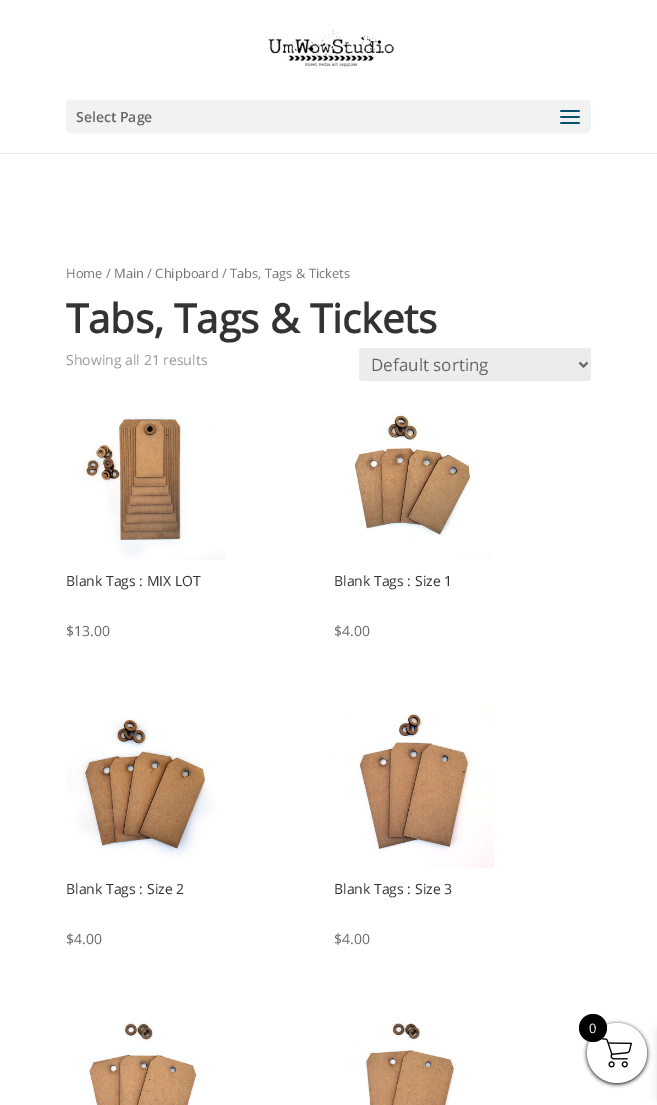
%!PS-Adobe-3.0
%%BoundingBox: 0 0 657 1105
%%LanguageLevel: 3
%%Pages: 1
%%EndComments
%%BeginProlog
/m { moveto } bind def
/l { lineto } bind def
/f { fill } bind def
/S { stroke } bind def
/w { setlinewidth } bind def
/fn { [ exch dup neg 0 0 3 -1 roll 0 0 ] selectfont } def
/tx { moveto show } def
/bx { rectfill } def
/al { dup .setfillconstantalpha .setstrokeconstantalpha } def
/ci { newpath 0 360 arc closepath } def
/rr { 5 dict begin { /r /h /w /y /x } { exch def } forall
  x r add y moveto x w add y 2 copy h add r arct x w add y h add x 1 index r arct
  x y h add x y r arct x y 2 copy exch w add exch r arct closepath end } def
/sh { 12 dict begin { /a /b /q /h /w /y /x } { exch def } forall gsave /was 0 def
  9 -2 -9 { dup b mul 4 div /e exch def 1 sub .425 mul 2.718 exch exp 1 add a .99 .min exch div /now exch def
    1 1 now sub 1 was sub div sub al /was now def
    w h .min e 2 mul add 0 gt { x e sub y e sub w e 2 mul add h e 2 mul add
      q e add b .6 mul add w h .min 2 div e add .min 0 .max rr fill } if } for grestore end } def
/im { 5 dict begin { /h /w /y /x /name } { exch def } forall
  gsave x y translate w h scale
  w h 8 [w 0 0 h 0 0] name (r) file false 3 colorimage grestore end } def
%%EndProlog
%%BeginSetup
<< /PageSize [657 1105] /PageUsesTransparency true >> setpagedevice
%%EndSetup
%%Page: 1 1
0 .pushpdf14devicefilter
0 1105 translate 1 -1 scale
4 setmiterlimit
1 setgray
0 0 657 1105 bx
0.902 setgray
0 153 657 1 bx
(image0.raw) 268 30 126 37 im
0.949 setgray
66 100 525 33 5 rr f
/OpenSans-SemiBold 14 fn
0.4 setgray
(Select Page) 76 122 tx
(image1.raw) 560 110 20 14 im
/OpenSans-Regular 12.9 fn
0.463 setgray
(Home / Main / Chipboard / Tabs, Tags & Tickets) 66 278 tx
/OpenSans-Bold 40 fn
0.2 setgray
(Tabs, Tags & Tickets) 66 333 tx
/OpenSans-Regular 14 fn
0.6 setgray
(Showing all 21 results) 66 365 tx
0.925 setgray
359 348 232 33 3 rr f
0.4 setgray
2 w
579.5 362.5 m 583.5 366.5 l 587.5 362.5 l S
/OpenSans-Regular 17 fn
(Default sorting) 371 371 tx
(image2.raw) 83 416 143 144 im
/OpenSans-Regular 14 fn
0.2 setgray
(Blank Tags : MIX LOT) 66 586 tx
0.4 setgray
($13.00) 66 636 tx
(image3.raw) 351 413 141 147 im
0.2 setgray
(Blank Tags : Size 1) 334 586 tx
0.4 setgray
($4.00) 334 636 tx
(image4.raw) 66 716 149 142 im
0.2 setgray
(Blank Tags : Size 2) 66 894 tx
0.4 setgray
($4.00) 66 944 tx
(image5.raw) 334 703 160 165 im
0.2 setgray
(Blank Tags : Size 3) 334 894 tx
0.4 setgray
($4.00) 334 944 tx
(image6.raw) 88 1021 109 84 im
(image7.raw) 355 1021 102 84 im
0 setgray
587 1024 60 60 30 2 1 sh
657 1030 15 70 0 5 0.1 sh
1 setgray
617 1053 30 ci f
(image8.raw) 602 1038 30 30 im
0 setgray
593 1028 14 ci f
/OpenSans-Regular 13 fn
1 setgray
(0) 589 1033 tx
.poppdf14devicefilter showpage
%%EOF
